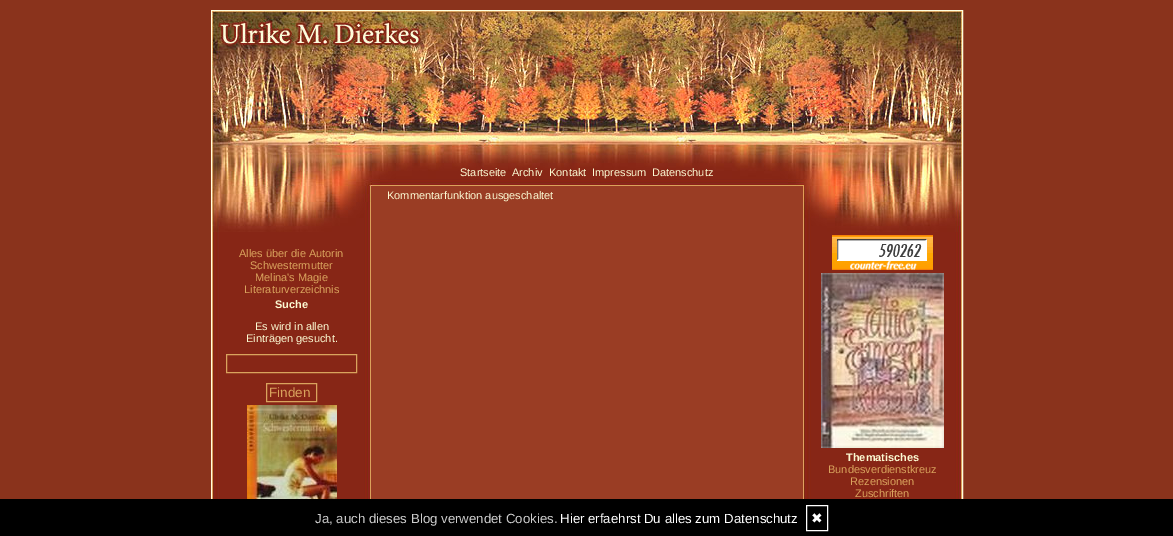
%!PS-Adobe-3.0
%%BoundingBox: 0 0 1173 536
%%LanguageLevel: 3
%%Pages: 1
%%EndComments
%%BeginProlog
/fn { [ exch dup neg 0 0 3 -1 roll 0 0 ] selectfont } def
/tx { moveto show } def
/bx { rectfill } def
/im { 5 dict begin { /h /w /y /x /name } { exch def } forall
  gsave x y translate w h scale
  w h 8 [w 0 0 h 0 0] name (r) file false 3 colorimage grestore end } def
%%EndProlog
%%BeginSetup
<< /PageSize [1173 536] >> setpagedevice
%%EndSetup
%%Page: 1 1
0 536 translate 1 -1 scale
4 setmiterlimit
0.541 0.2 0.11 setrgbcolor
0 0 1173 536 bx
1 1 0.867 setrgbcolor
211.5 10.5 751 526 rectstroke
(image0.raw) 212 11 750 152 im
(image1.raw) 212 163 750 23 im
/LiberationSans-Regular 11 fn
0.988 0.98 0.827 setrgbcolor
(Startseite) 460 176 tx
(Archiv) 512 176 tx
(Kontakt) 549 176 tx
(Impressum) 592 176 tx
(Datenschutz) 652 176 tx
0.604 0.239 0.141 setrgbcolor
371 186 432 313 bx
0.988 0.98 0.827 setrgbcolor
(Kommentarfunktion ausgeschaltet) 387 199 tx
(image2.raw) 212 232 159 267 im
(image3.raw) 212 186 159 46 im
0.851 0.639 0.365 setrgbcolor
(Alles über die Autorin) 239 257 tx
(Schwestermutter) 250 269 tx
(Melina's Magie) 255 281 tx
(Literaturverzeichnis) 244 293 tx
/LiberationSans-Bold 11 fn
0.988 0.98 0.827 setrgbcolor
(Suche) 275 308 tx
/LiberationSans-Regular 11 fn
(Es wird in allen) 255 330 tx
(Einträgen gesucht.) 246 342 tx
0.851 0.639 0.365 setrgbcolor
226.5 354.5 130 18 rectstroke
266.5 383.5 50 18 rectstroke
/LiberationSans-Regular 13.5 fn
(Finden) 269 397 tx
(image4.raw) 247 405 90 94 im
(image2.raw) 803 232 159 267 im
(image5.raw) 803 186 159 46 im
(image6.raw) 832 235 101 35 im
(image7.raw) 821 273 123 175 im
/LiberationSans-Bold 11 fn
0.988 0.98 0.827 setrgbcolor
(Thematisches) 846 461 tx
/LiberationSans-Regular 11 fn
0.851 0.639 0.365 setrgbcolor
(Bundesverdienstkreuz) 828 473 tx
(Rezensionen) 850 485 tx
(Zuschriften) 855 497 tx
0 setgray
0 500 1173 36 bx
-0.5 499.5 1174 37 rectstroke
/LiberationSans-Regular 13.25 fn
0.8 setgray
(Ja, auch dieses Blog verwendet Cookies.) 315 523 tx
1 setgray
(Hier erfaehrst Du alles zum Datenschutz) 560 523 tx
806.5 505.5 21 25 rectstroke
/DejaVuSans-Regular 14 fn
(✖) 811 523 tx
showpage
%%EOF
